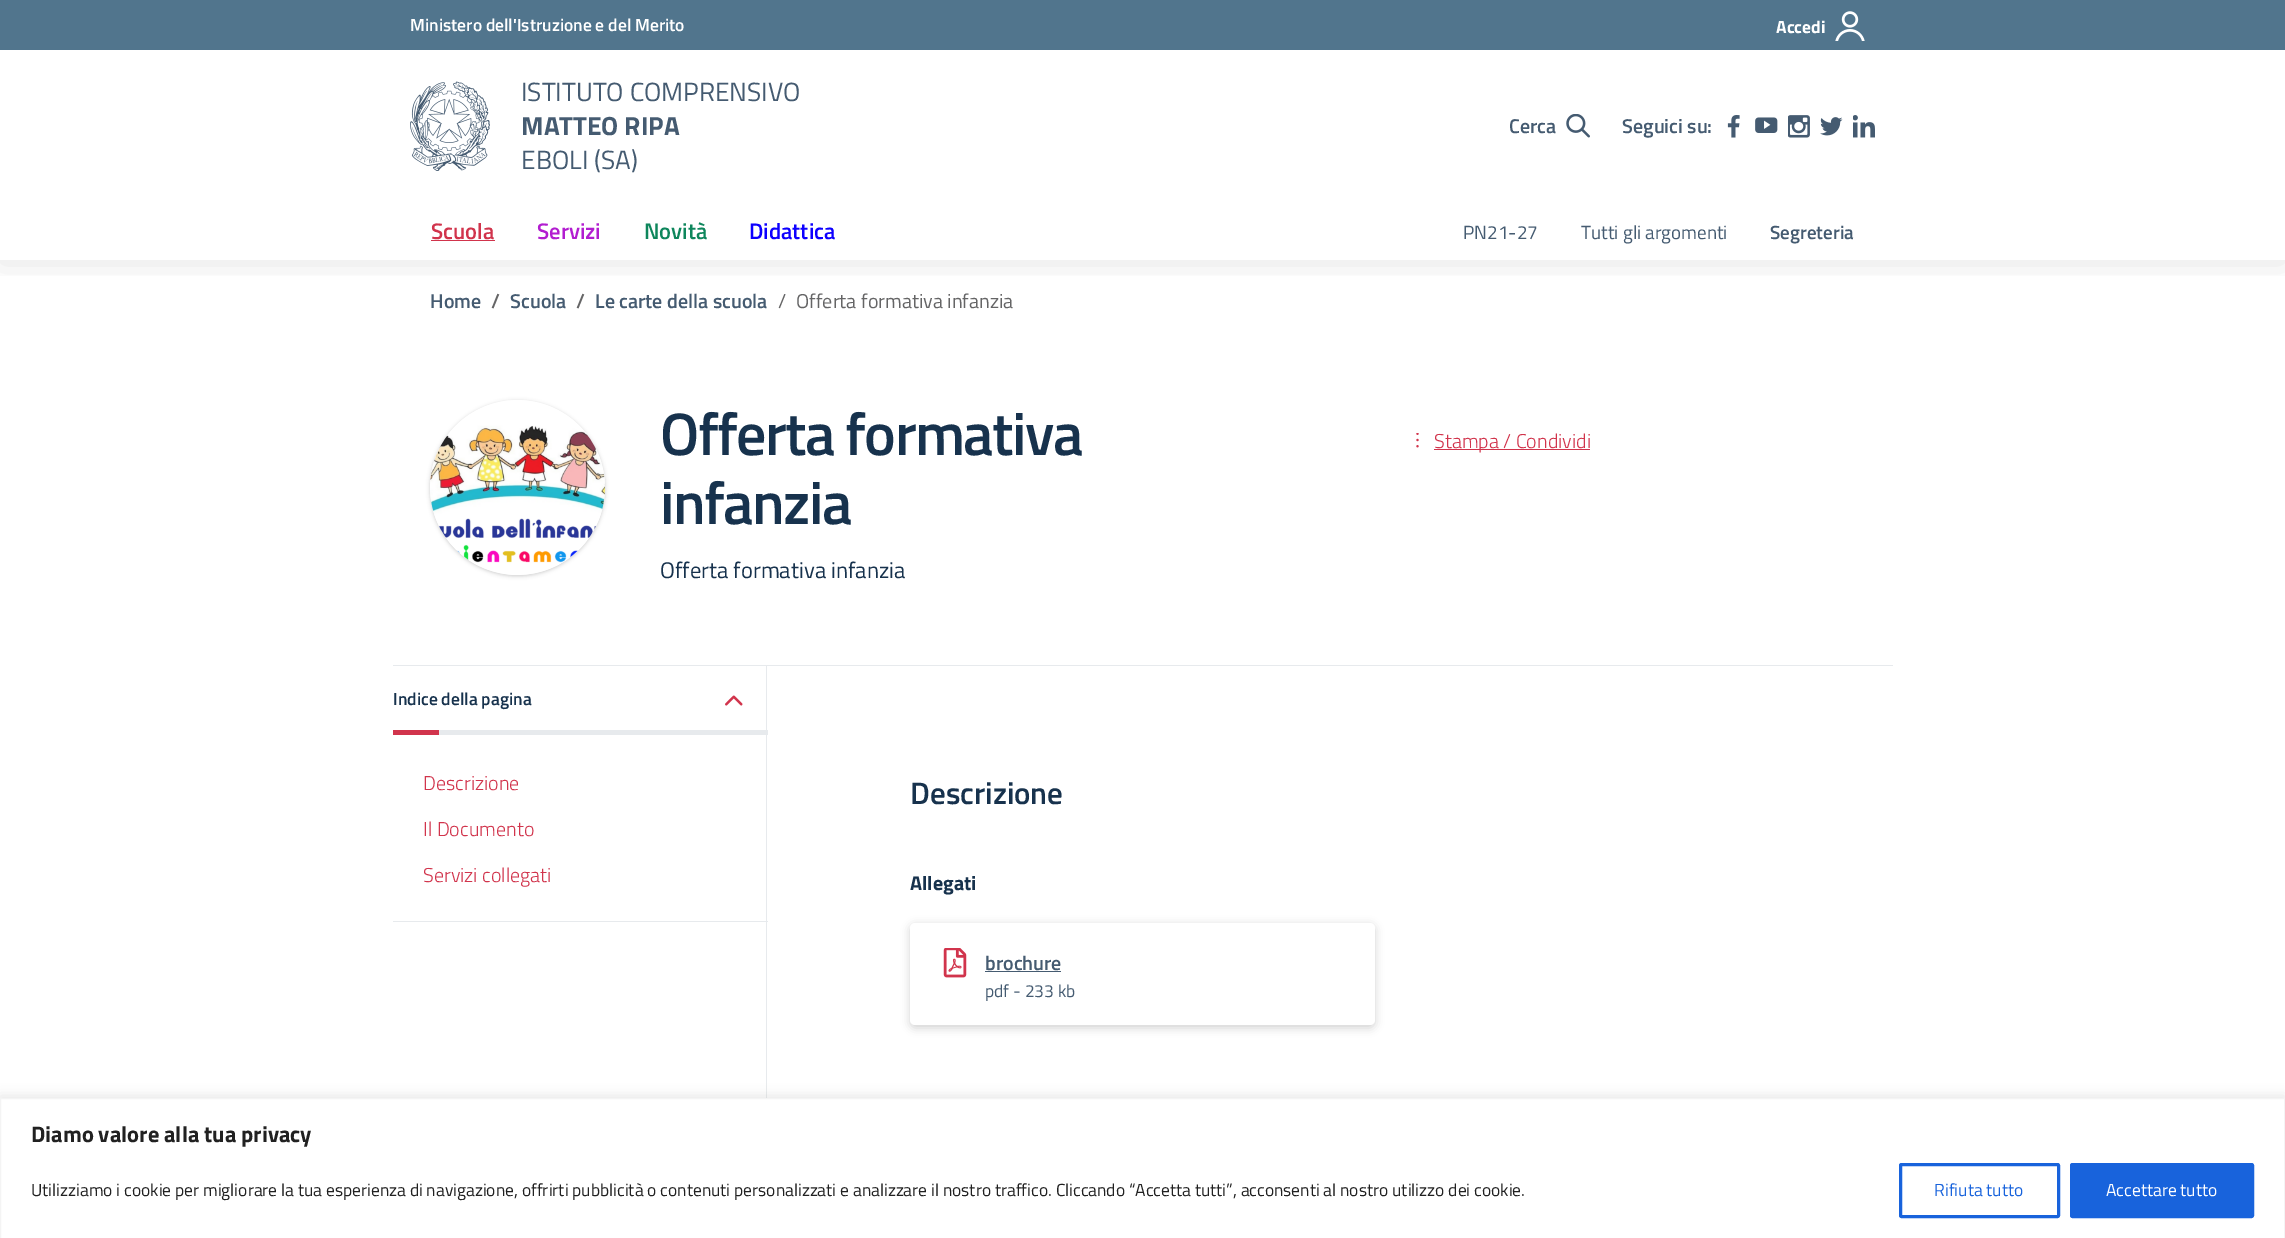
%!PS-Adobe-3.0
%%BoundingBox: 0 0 2285 1238
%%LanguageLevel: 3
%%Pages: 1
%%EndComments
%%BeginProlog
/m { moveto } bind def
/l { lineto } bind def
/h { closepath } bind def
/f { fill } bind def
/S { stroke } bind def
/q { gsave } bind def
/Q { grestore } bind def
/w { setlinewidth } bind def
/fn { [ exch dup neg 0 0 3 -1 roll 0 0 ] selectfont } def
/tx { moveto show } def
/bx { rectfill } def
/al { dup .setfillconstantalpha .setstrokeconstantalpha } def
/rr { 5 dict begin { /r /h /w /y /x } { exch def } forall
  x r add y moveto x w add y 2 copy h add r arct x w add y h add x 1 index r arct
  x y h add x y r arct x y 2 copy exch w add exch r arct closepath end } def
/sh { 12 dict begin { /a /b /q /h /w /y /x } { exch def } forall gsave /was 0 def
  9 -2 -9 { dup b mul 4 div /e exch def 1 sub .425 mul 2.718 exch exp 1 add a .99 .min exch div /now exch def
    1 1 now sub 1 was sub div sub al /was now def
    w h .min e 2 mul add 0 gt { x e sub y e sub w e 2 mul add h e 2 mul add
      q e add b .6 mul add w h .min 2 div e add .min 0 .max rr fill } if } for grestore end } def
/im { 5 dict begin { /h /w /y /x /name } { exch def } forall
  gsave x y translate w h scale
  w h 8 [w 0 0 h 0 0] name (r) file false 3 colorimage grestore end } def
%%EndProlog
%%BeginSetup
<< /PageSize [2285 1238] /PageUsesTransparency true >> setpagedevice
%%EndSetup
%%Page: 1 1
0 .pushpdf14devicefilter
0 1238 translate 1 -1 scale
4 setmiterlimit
1 setgray
0 0 2285 1238 bx
q
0 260 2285 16 rectclip
0 setgray
0 3 2285 260 0 15.5 0.1 sh
Q
0.318 0.459 0.553 setrgbcolor
0 0 2285 50 bx
/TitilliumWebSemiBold-SemiBold 17.5 fn
1 setgray
(Ministero dell'Istruzione e del Merito) 410 31 tx
/TitilliumWeb-Bold 17.5 fn
(Accedi) 1776 33 tx
(image0.raw) 1835 11 30 30 im
(image1.raw) 410 81 80 90 im
/TitilliumWeb-Regular 26.25 fn
0.271 0.357 0.443 setrgbcolor
(ISTITUTO COMPRENSIVO) 521 101 tx
/TitilliumWeb-Bold 26.25 fn
(MATTEO RIPA) 521 135 tx
/TitilliumWeb-Regular 26.25 fn
(EBOLI \(SA\)) 521 169 tx
/TitilliumWebSemiBold-SemiBold 20 fn
(Cerca) 1509 133 tx
(image2.raw) 1566 114 24 24 im
(Seguici su:) 1622 133 tx
(image3.raw) 1727 115 13 23 im
(image4.raw) 1755 117 23 16 im
(image5.raw) 1788 115 22 23 im
(image6.raw) 1820 117 23 19 im
(image7.raw) 1853 115 22 23 im
/TitilliumWebSemiBold-SemiBold 22.5 fn
0.82 0.204 0.298 setrgbcolor
(Scuola) 431 239 tx
431 240 64 1 bx
0.698 0.114 0.816 setrgbcolor
(Servizi) 537 239 tx
0.055 0.525 0.361 setrgbcolor
(Novità) 644 239 tx
0.051 0 1 setrgbcolor
(Didattica) 749 239 tx
/TitilliumWeb-Regular 19 fn
0.271 0.357 0.443 setrgbcolor
(PN21-27) 1463 239 tx
(Tutti gli argomenti) 1581 239 tx
/TitilliumWebSemiBold-SemiBold 19 fn
(Segreteria) 1770 239 tx
/TitilliumWebSemiBold-SemiBold 20 fn
(Home) 430 308 tx
0.396 0.396 0.4 setrgbcolor
(/) 491 308 tx
0.271 0.357 0.443 setrgbcolor
(Scuola) 510 308 tx
0.396 0.396 0.4 setrgbcolor
(/) 576 308 tx
0.271 0.357 0.443 setrgbcolor
(Le carte della scuola) 595 308 tx
/TitilliumWeb-Regular 20 fn
0.396 0.396 0.4 setrgbcolor
(/) 778 308 tx
(Offerta formativa infanzia) 796 308 tx
0 setgray
430 401 175 175 87.5 2 0.2 sh
(image8.raw) 430 400 175 175 im
/TitilliumWebSemiBold-SemiBold 60 fn
0.09 0.196 0.302 setrgbcolor
660 455 m -1.6 0 (Offerta formativa) ashow
660 524 m -1.6 0 (infanzia) ashow
/TitilliumWeb-Regular 22.6 fn
(Offerta formativa infanzia) 660 578 tx
(image9.raw) 1416 433 3 15 im
0.82 0.204 0.298 setrgbcolor
1434 449 156 1 bx
/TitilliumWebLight-Light 20 fn
(Stampa / Condividi) 1434 448 tx
0.906 0.918 0.929 setrgbcolor
393 665 1500 1 bx
/TitilliumWebSemiBold-SemiBold 17.5 fn
0.09 0.196 0.302 setrgbcolor
(Indice della pagina) 393 705 tx
(image10.raw) 725 695 18 11 im
0.82 0.204 0.298 setrgbcolor
393 730 46 5 bx
0.906 0.918 0.929 setrgbcolor
439 730 329 5 bx
393 921 375 1 bx
/TitilliumWebLight-Light 20 fn
0.82 0.204 0.298 setrgbcolor
(Descrizione) 423 790 tx
(Il Documento) 423 836 tx
(Servizi collegati) 423 882 tx
0.906 0.918 0.929 setrgbcolor
766 666 1 432 bx
/TitilliumWebSemiBold-SemiBold 31 fn
0.09 0.196 0.302 setrgbcolor
(Descrizione) 910 804 tx
/TitilliumWeb-Bold 20 fn
(Allegati) 910 890 tx
0 setgray
910 925 465 103 5 4.5 0.17 sh
1 setgray
910 923 465 102 5 rr f
(image11.raw) 943 948 24 30 im
/TitilliumWebSemiBold-SemiBold 20 fn
0.271 0.357 0.443 setrgbcolor
(brochure) 985 970 tx
985 971 76 1 bx
/TitilliumWeb-Regular 17.5 fn
(pdf - 233 kb) 985 997 tx
0.675 0.671 0.671 setrgbcolor
0 1096 2285 142 0 6 0.3 sh
1 setgray
0.5 1098.5 m 2284.5 1098.5 l 2284.5 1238.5 l 0.5 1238.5 l h q f Q
0.957 setgray
S
/TitilliumWeb-Bold 22.5 fn
0.129 setgray
(Diamo valore alla tua privacy) 31 1142 tx
/TitilliumWeb-Regular 17.5 fn
(Utilizziamo i cookie per migliorare la tua esperienza di navigazione, offrirti pubblicità o contenuti personalizzati e analizzare il nostro traffico. Cliccando “Accetta tutti”, acconsenti al nostro utilizzo dei cookie.) 31 1196 tx
0.094 0.388 0.863 setrgbcolor
3 w
1900.5 1164.5 158 52 1 rr S
(Rifiuta tutto) 1934 1196 tx
2071.5 1164.5 181 52 1 rr q f Q
S
1 setgray
(Accettare tutto) 2106 1196 tx
.poppdf14devicefilter showpage
%%EOF
